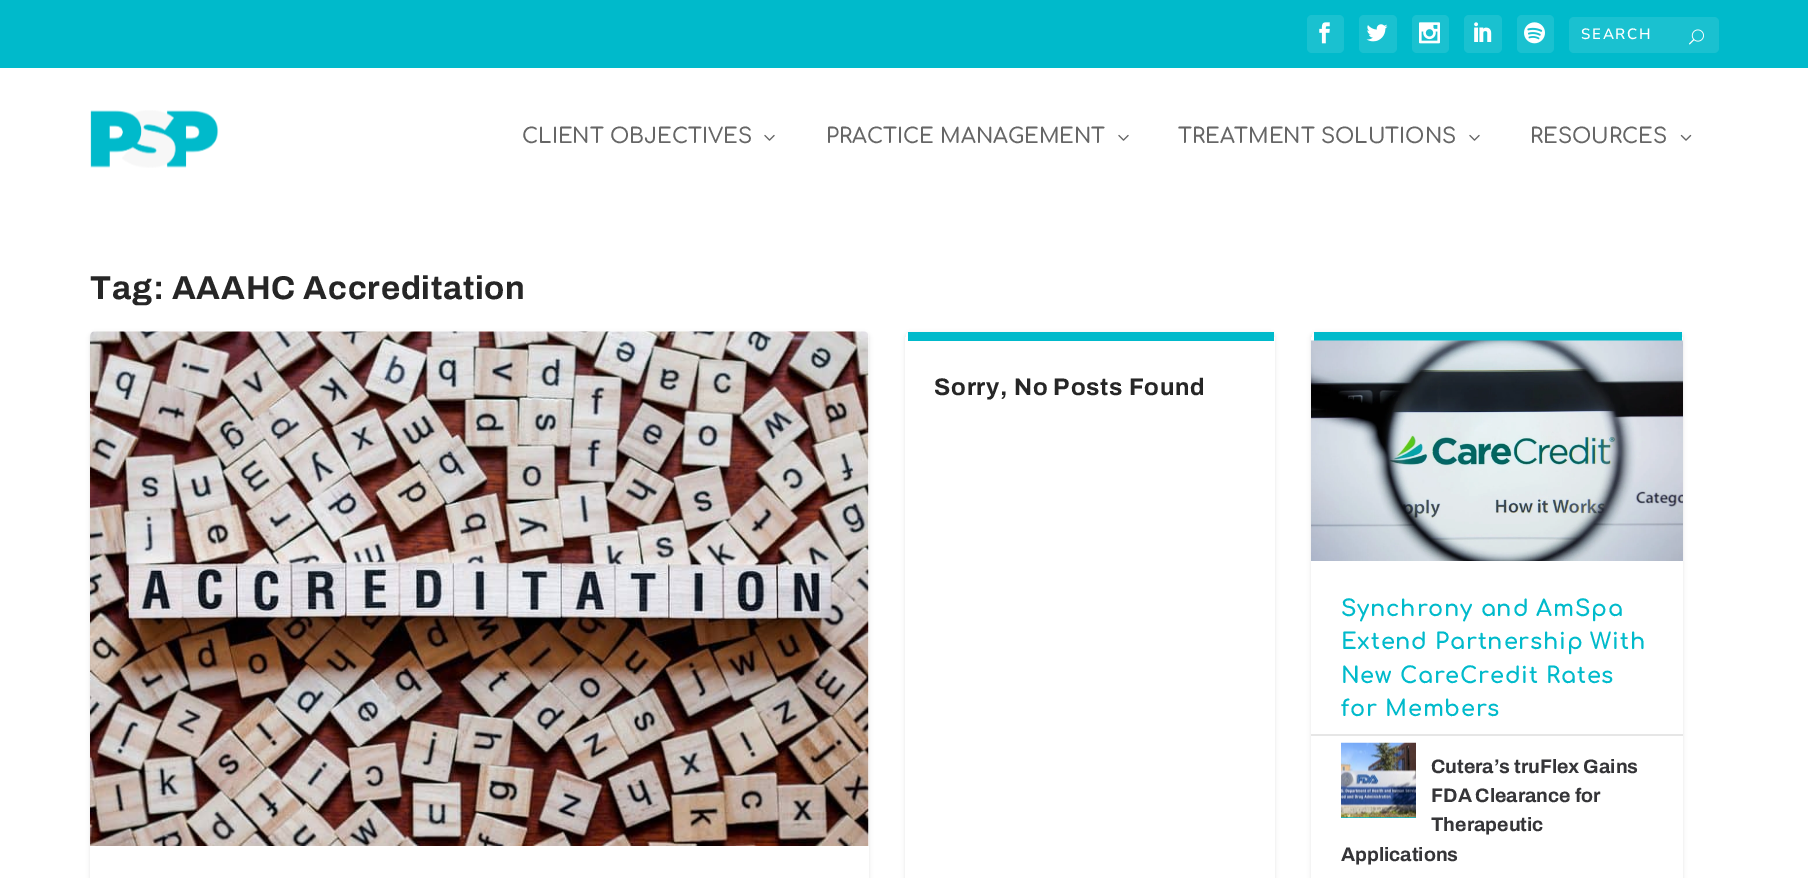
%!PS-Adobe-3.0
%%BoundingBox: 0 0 1808 878
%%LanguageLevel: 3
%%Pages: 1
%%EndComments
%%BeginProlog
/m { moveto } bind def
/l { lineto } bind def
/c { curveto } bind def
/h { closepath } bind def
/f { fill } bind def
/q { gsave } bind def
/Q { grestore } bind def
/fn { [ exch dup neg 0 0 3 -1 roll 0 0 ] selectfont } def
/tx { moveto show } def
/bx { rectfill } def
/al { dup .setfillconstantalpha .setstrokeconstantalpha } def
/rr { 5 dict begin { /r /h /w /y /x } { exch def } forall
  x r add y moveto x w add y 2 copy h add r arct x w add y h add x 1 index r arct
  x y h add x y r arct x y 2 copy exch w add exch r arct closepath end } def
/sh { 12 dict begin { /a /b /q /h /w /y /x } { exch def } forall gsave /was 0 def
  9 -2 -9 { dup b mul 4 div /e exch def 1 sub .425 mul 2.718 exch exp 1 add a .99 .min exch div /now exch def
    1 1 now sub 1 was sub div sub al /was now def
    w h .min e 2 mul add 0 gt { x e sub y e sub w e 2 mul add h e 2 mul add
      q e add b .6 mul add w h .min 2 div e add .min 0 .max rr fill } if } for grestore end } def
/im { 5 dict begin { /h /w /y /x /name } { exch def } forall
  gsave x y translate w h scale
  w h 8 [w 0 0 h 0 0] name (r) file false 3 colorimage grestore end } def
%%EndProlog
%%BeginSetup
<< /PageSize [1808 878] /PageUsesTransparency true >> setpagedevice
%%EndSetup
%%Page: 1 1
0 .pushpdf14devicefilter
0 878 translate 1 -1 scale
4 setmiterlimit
1 setgray
0 0 1808 878 bx
0 0.729 0.796 setrgbcolor
0 0 1808 68 bx
0.102 0.757 0.816 setrgbcolor
1307 15 37 38 5 rr f
(image0.raw) 1319 22 11 22 im
1359 15 38 38 5 rr f
(image1.raw) 1366 24 22 18 im
1412 15 37 38 5 rr f
(image2.raw) 1419 22 21 22 im
1464 15 38 38 5 rr f
(image3.raw) 1474 22 18 20 im
1517 15 37 38 5 rr f
(image4.raw) 1524 22 21 22 im
1569 17 150 36 5 rr f
/NunitoSans-SemiBold 15 fn
1 setgray
1581 39 m 1.75 0 (SEARCH) ashow
(image5.raw) 1689 29 15 16 im
(image6.raw) 90 110 129 58 im
/Comfortaa-SemiBold 21 fn
0.4 setgray
(CLIENT OBJECTIVES) 522 143 tx
(image7.raw) 764 134 11 7 im
(PRACTICE MANAGEMENT) 826 143 tx
(image7.raw) 1118 134 11 7 im
(TREATMENT SOLUTIONS) 1178 143 tx
(image7.raw) 1469 134 11 7 im
(RESOURCES) 1530 143 tx
(image8.raw) 1680 134 12 7 im
/Archivo-Bold 33 fn
0.149 setgray
90 299 m 0.75 0 (Tag: AAAHC Accreditation) ashow
0 setgray
90 333 779 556 5 2 0.1 sh
1 setgray
90 332 779 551 5 rr f
(image9.raw) 90 331 779 515 im
q
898 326 m 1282 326 l 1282 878 l 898 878 l h 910 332 m 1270 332 l 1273 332 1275 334 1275 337 c 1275 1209 l 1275 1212 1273 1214 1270 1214 c 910 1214 l 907 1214 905 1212 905 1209 c 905 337 l 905 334 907 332 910 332 c h eoclip newpath
0 setgray
905 333 370 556 5 2 0.1 sh
Q
0 0.729 0.796 setrgbcolor
908 332 366 9 bx
/Archivo-Bold 24 fn
0.149 setgray
934 395 m 0.75 0 (Sorry, No Posts Found) ashow
q
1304 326 m 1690 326 l 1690 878 l 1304 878 l h 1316 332 m 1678 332 l 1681 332 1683 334 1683 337 c 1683 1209 l 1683 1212 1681 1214 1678 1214 c 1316 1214 l 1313 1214 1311 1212 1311 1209 c 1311 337 l 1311 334 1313 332 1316 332 c h eoclip newpath
0 setgray
1311 333 372 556 5 2 0.1 sh
Q
0 0.729 0.796 setrgbcolor
1314 332 368 9 bx
(image10.raw) 1311 340 372 221 im
/Comfortaa-Bold 22.5 fn
1341 616 m 0.75 0 (Synchrony and AmSpa) ashow
1341 649 m 0.75 0 (Extend Partnership With) ashow
1341 683 m 0.75 0 (New CareCredit Rates) ashow
1341 716 m 0.75 0 (for Members) ashow
0.902 setgray
1311 734 372 2 bx
0 0.729 0.796 setrgbcolor
1341 817 75 1 bx
(image11.raw) 1341 742 75 76 im
/Archivo-Bold 19.5 fn
0.208 0.208 0.22 setrgbcolor
(Cutera’s truFlex Gains) 1431 773 tx
(FDA Clearance for) 1431 802 tx
(Therapeutic) 1431 831 tx
(Applications) 1341 861 tx
.poppdf14devicefilter showpage
%%EOF
